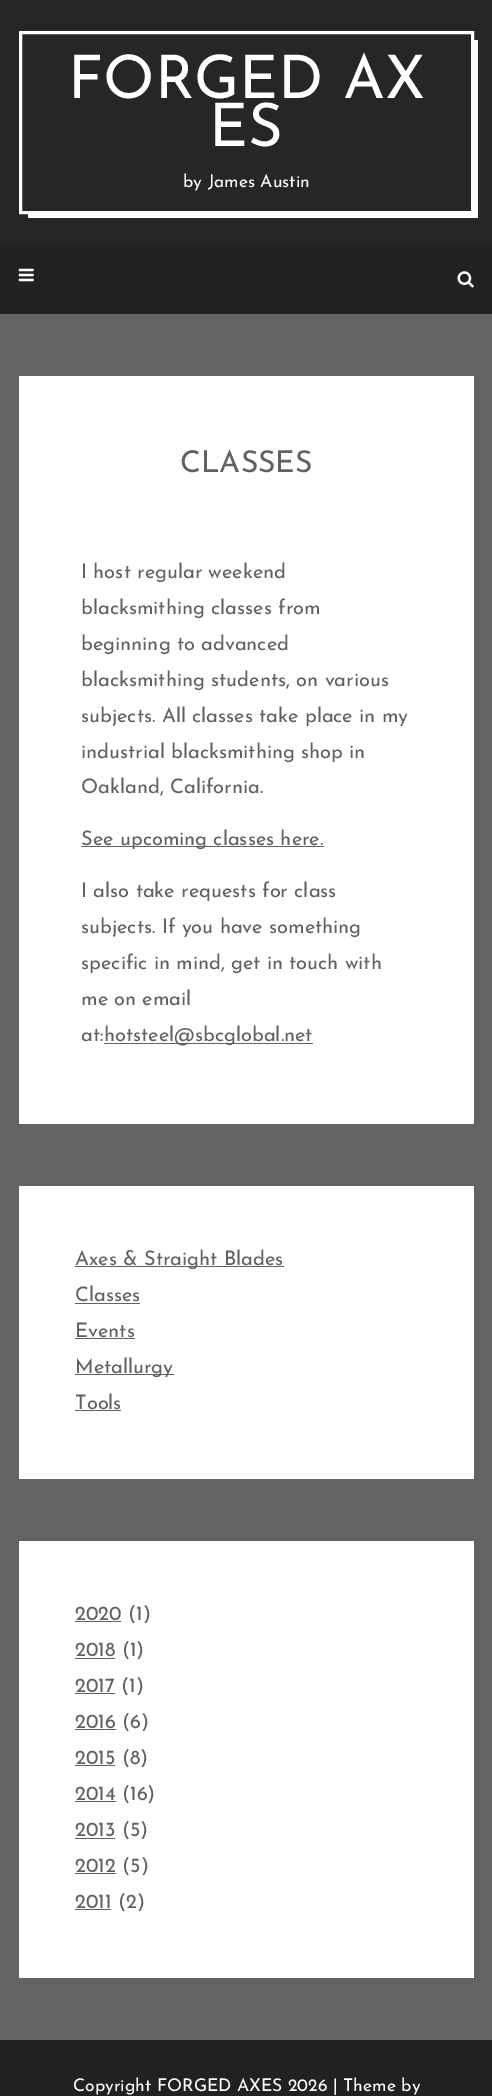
%!PS-Adobe-3.0
%%BoundingBox: 0 0 492 2096
%%LanguageLevel: 3
%%Pages: 1
%%EndComments
%%BeginProlog
/w { setlinewidth } bind def
/fn { [ exch dup neg 0 0 3 -1 roll 0 0 ] selectfont } def
/tx { moveto show } def
/bx { rectfill } def
/im { 5 dict begin { /h /w /y /x /name } { exch def } forall
  gsave x y translate w h scale
  w h 8 [w 0 0 h 0 0] name (r) file false 3 colorimage grestore end } def
%%EndProlog
%%BeginSetup
<< /PageSize [492 2096] >> setpagedevice
%%EndSetup
%%Page: 1 1
0 2096 translate 1 -1 scale
4 setmiterlimit
0.388 setgray
0 0 492 2096 bx
0.149 setgray
0 0 492 245 bx
1 setgray
474 40 4 178 bx
28 213 450 5 bx
3 w
20.5 32.5 452 180 rectstroke
/JosefinSans-Regular 60 fn
(FORGED AX) 68 98 tx
(ES) 209 146 tx
/JosefinSans-Regular 17.5 fn
(by James Austin) 183 187 tx
0.133 setgray
0 245 492 69 bx
(image0.raw) 18 268 16 14 im
(image1.raw) 457 271 17 17 im
1 setgray
19 376 455 748 bx
/JosefinSans-Regular 30 fn
0.38 setgray
(CLASSES) 180 472 tx
/JosefinSans-Regular 20 fn
(I host regular weekend) 81 578 tx
(blacksmithing classes from) 81 614 tx
(beginning to advanced) 81 650 tx
(blacksmithing students, on various) 81 686 tx
(subjects. All classes take place in my) 81 722 tx
(industrial blacksmithing shop in) 81 758 tx
(Oakland, California.) 81 793 tx
81 846 243 1 bx
(See upcoming classes here.) 81 845 tx
(I also take requests for class) 81 897 tx
(subjects. If you have something) 81 933 tx
(specific in mind, get in touch with) 81 969 tx
(me on email) 81 1005 tx
(at:) 81 1041 tx
104 1043 209 1 bx
(hotsteel@sbcglobal.net) 104 1041 tx
1 setgray
19 1186 455 293 bx
0.38 setgray
75 1266 209 1 bx
(Axes & Straight Blades) 75 1265 tx
(Classes) 75 1301 tx
75 1303 65 1 bx
(Events) 75 1337 tx
75 1338 60 1 bx
75 1374 99 1 bx
(Metallurgy) 75 1373 tx
(Tools) 75 1409 tx
75 1410 46 1 bx
1 setgray
19 1541 455 437 bx
0.38 setgray
75 1621 46 1 bx
(2020 \(1\)) 75 1620 tx
75 1658 40 1 bx
(2018 \(1\)) 75 1656 tx
75 1693 40 1 bx
(2017 \(1\)) 75 1692 tx
75 1729 41 1 bx
(2016 \(6\)) 75 1728 tx
75 1765 40 1 bx
(2015 \(8\)) 75 1764 tx
75 1801 41 1 bx
(2014 \(16\)) 75 1800 tx
75 1838 40 1 bx
(2013 \(5\)) 75 1836 tx
75 1873 41 1 bx
(2012 \(5\)) 75 1872 tx
75 1909 36 1 bx
(2011 \(2\)) 75 1908 tx
0.129 setgray
0 2040 492 56 bx
/JosefinSans-Regular 17.5 fn
1 setgray
(Copyright FORGED AXES 2026 | Theme by) 73 2091 tx
showpage
%%EOF
